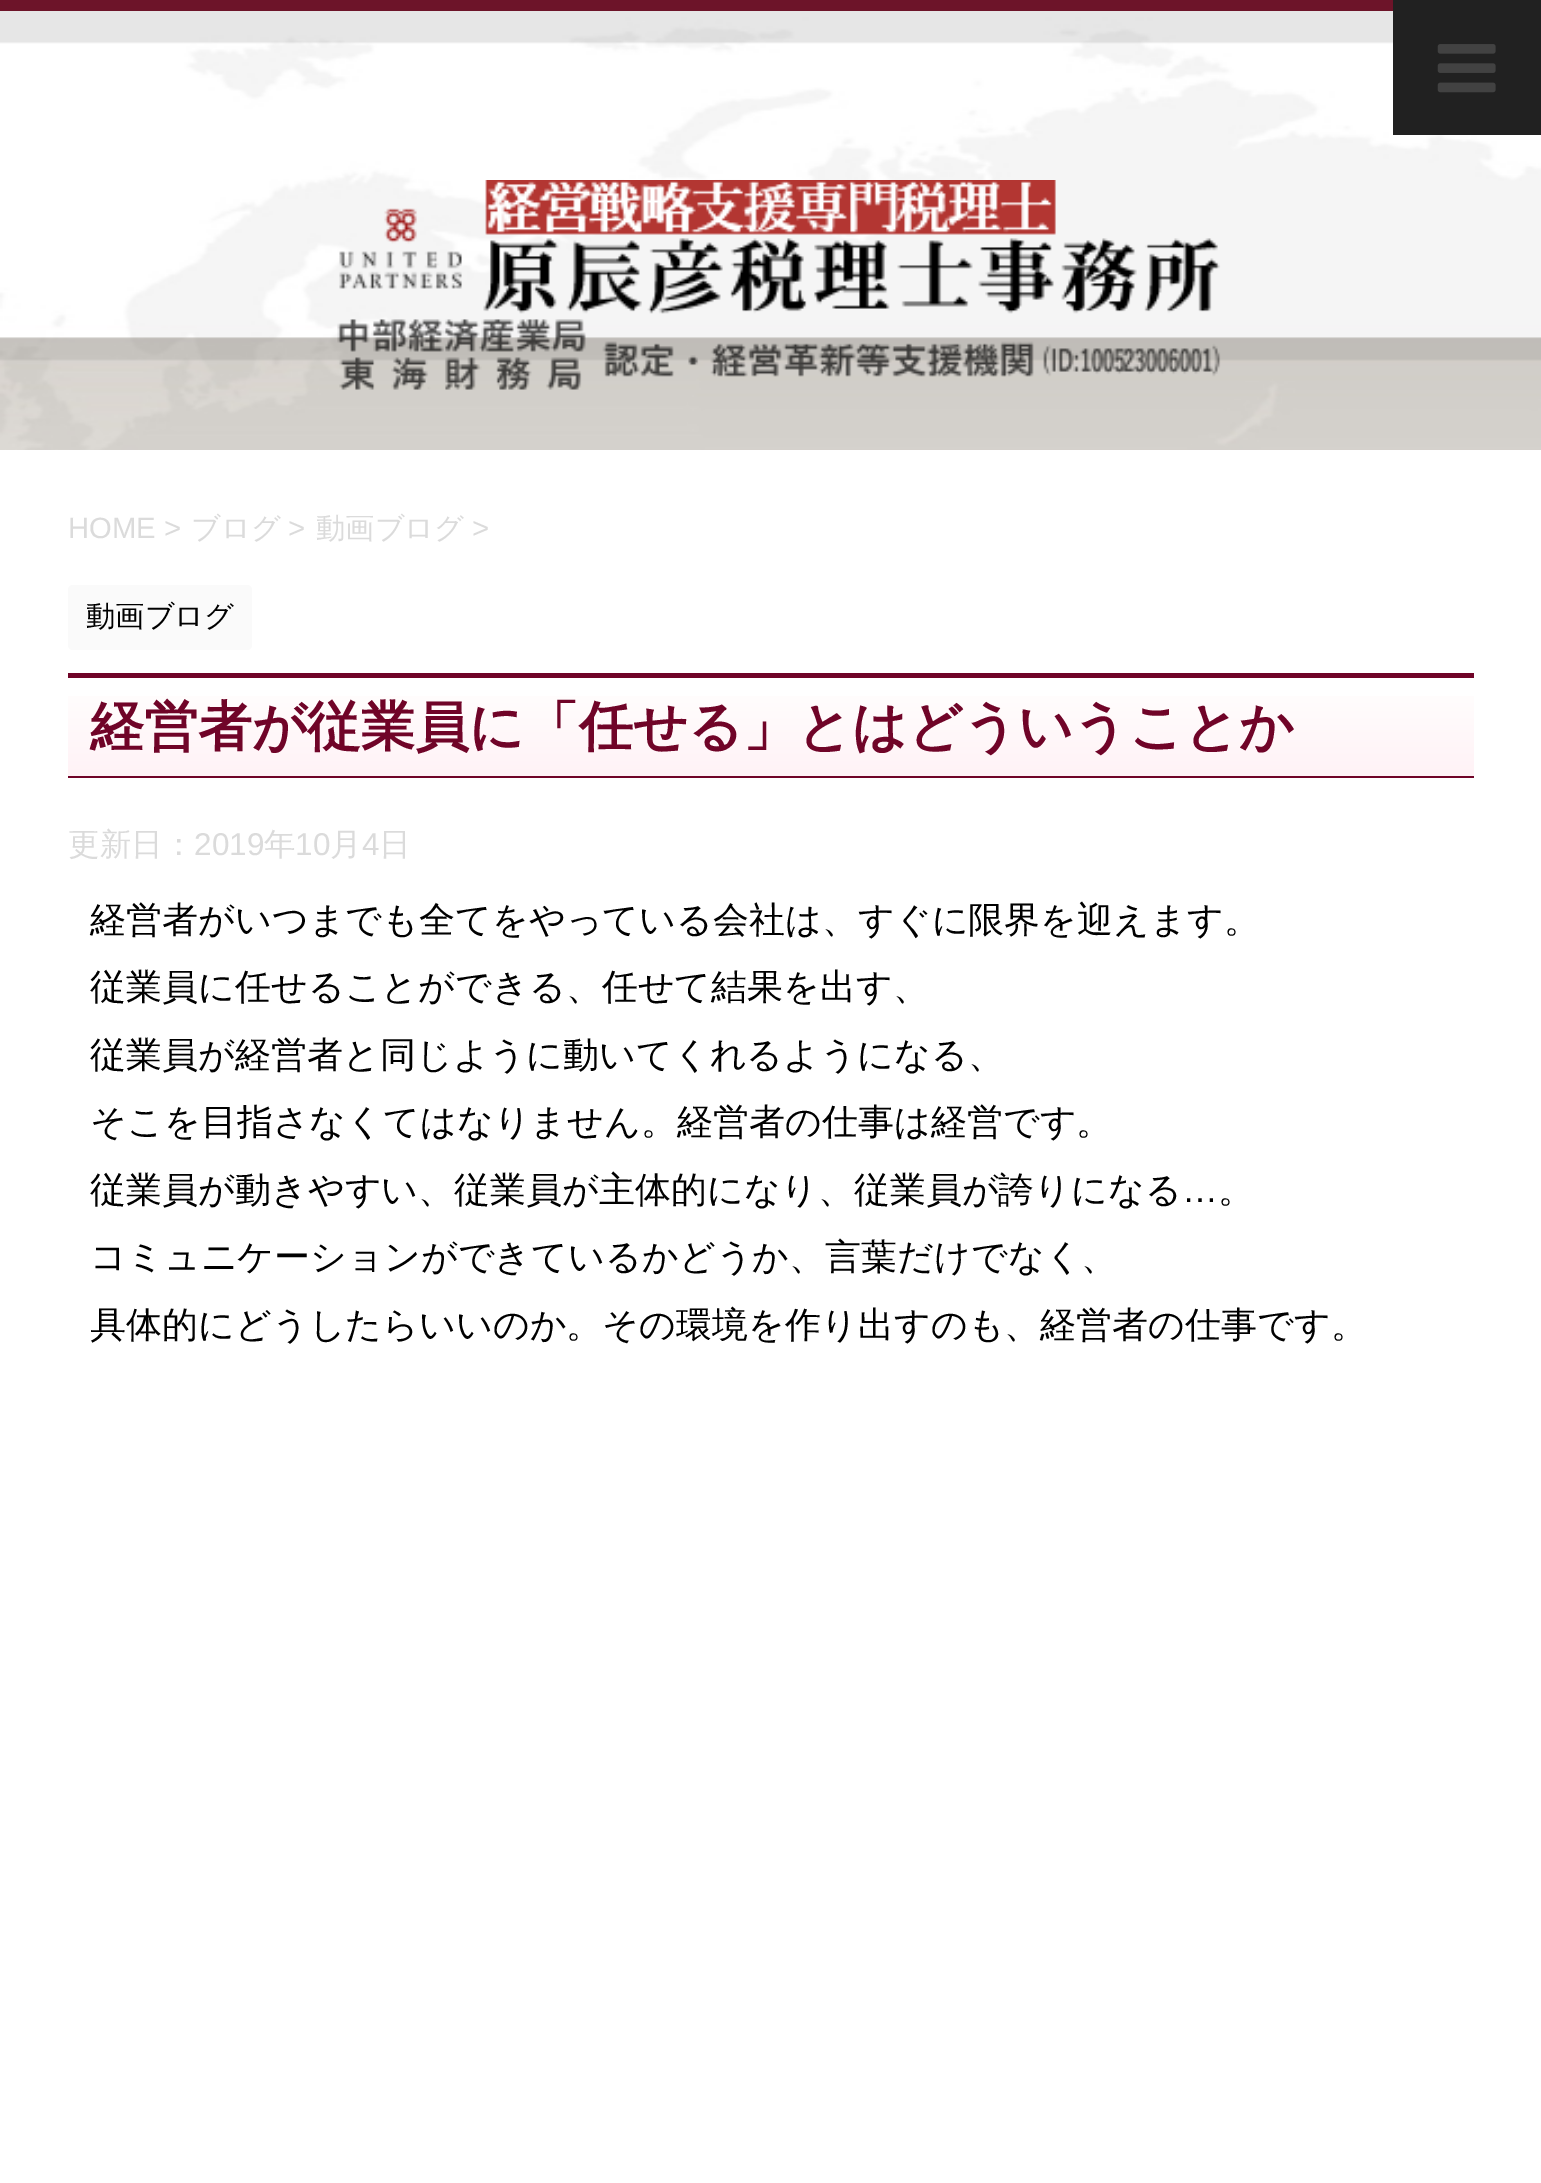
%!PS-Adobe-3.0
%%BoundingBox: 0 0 1541 2183
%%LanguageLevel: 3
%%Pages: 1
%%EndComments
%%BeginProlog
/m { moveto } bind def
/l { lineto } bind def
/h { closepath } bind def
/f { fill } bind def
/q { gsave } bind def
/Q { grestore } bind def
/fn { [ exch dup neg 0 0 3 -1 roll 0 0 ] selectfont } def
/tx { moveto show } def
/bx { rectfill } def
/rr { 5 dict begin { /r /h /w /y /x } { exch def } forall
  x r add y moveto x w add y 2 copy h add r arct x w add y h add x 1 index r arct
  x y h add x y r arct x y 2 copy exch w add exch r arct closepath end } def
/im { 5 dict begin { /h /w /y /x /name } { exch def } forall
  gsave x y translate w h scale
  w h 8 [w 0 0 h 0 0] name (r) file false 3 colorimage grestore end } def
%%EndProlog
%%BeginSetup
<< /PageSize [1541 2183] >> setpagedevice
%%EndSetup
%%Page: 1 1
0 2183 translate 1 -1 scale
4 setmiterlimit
1 setgray
0 0 1541 2183 bx
(image0.raw) 0 11 1541 439 im
0.427 0.078 0.161 setrgbcolor
0 0 1393 11 bx
0.129 setgray
1393 0 148 135 bx
(image1.raw) 1437 44 59 49 im
(image2.raw) 337 180 884 210 im
/LiberationSans-Regular 29.25 fn
0.859 setgray
(HOME >) 68 538 tx
/WenQuanYiZenHei-Medium 29.25 fn
(ブログ) 191 538 tx
/LiberationSans-Regular 29.25 fn
(>) 288 538 tx
/WenQuanYiZenHei-Medium 29.25 fn
(動画ブログ) 316 538 tx
/LiberationSans-Regular 29.25 fn
(>) 472 538 tx
0.98 setgray
68 585 184 65 5 rr f
/WenQuanYiZenHei-Medium 29.25 fn
0 setgray
(動画ブログ) 86 626 tx
q 68 696 m 1474 696 l 1474 776 l 68 776 l h clip newpath
<< /ShadingType 2 /ColorSpace /DeviceRGB /Coords [771 677 771 776] /Extend [true true] /Function << /FunctionType 2 /Domain [0 1] /C0 [1 1 1] /C1 [1 0.949 0.965] /N 1 >> >> shfill Q
0.439 0.016 0.157 setrgbcolor
68 673 1406 5 bx
68 776 1406 2 bx
/WenQuanYiZenHei-Bold 54 fn
(経営者が従業員に「任せる」とはどういうことか) 90 745 tx
/WenQuanYiZenHei-Medium 31.5 fn
0.859 setgray
(更新日：) 68 855 tx
/LiberationSans-Regular 31.5 fn
(2019) 194 855 tx
/WenQuanYiZenHei-Medium 31.5 fn
(年) 264 855 tx
/LiberationSans-Regular 31.5 fn
(10) 295 855 tx
/WenQuanYiZenHei-Medium 31.5 fn
(月) 330 855 tx
/LiberationSans-Regular 31.5 fn
(4) 362 855 tx
/WenQuanYiZenHei-Medium 31.5 fn
(日) 379 855 tx
/WenQuanYiZenHei-Medium 36 fn
0 setgray
(経営者がいつまでも全てをやっている会社は、すぐに限界を迎えます。) 90 932 tx
(従業員に任せることができる、任せて結果を出す、) 90 999 tx
(従業員が経営者と同じように動いてくれるようになる、) 90 1067 tx
(そこを目指さなくてはなりません。経営者の仕事は経営です。) 90 1134 tx
(従業員が動きやすい、従業員が主体的になり、従業員が誇りになる) 90 1202 tx
/LiberationSans-Regular 36 fn
(…) 1182 1202 tx
/WenQuanYiZenHei-Medium 36 fn
(。) 1218 1202 tx
(コミュニケーションができているかどうか、言葉だけでなく、) 90 1269 tx
(具体的にどうしたらいいのか。その環境を作り出すのも、経営者の仕事です。) 90 1337 tx
showpage
%%EOF
